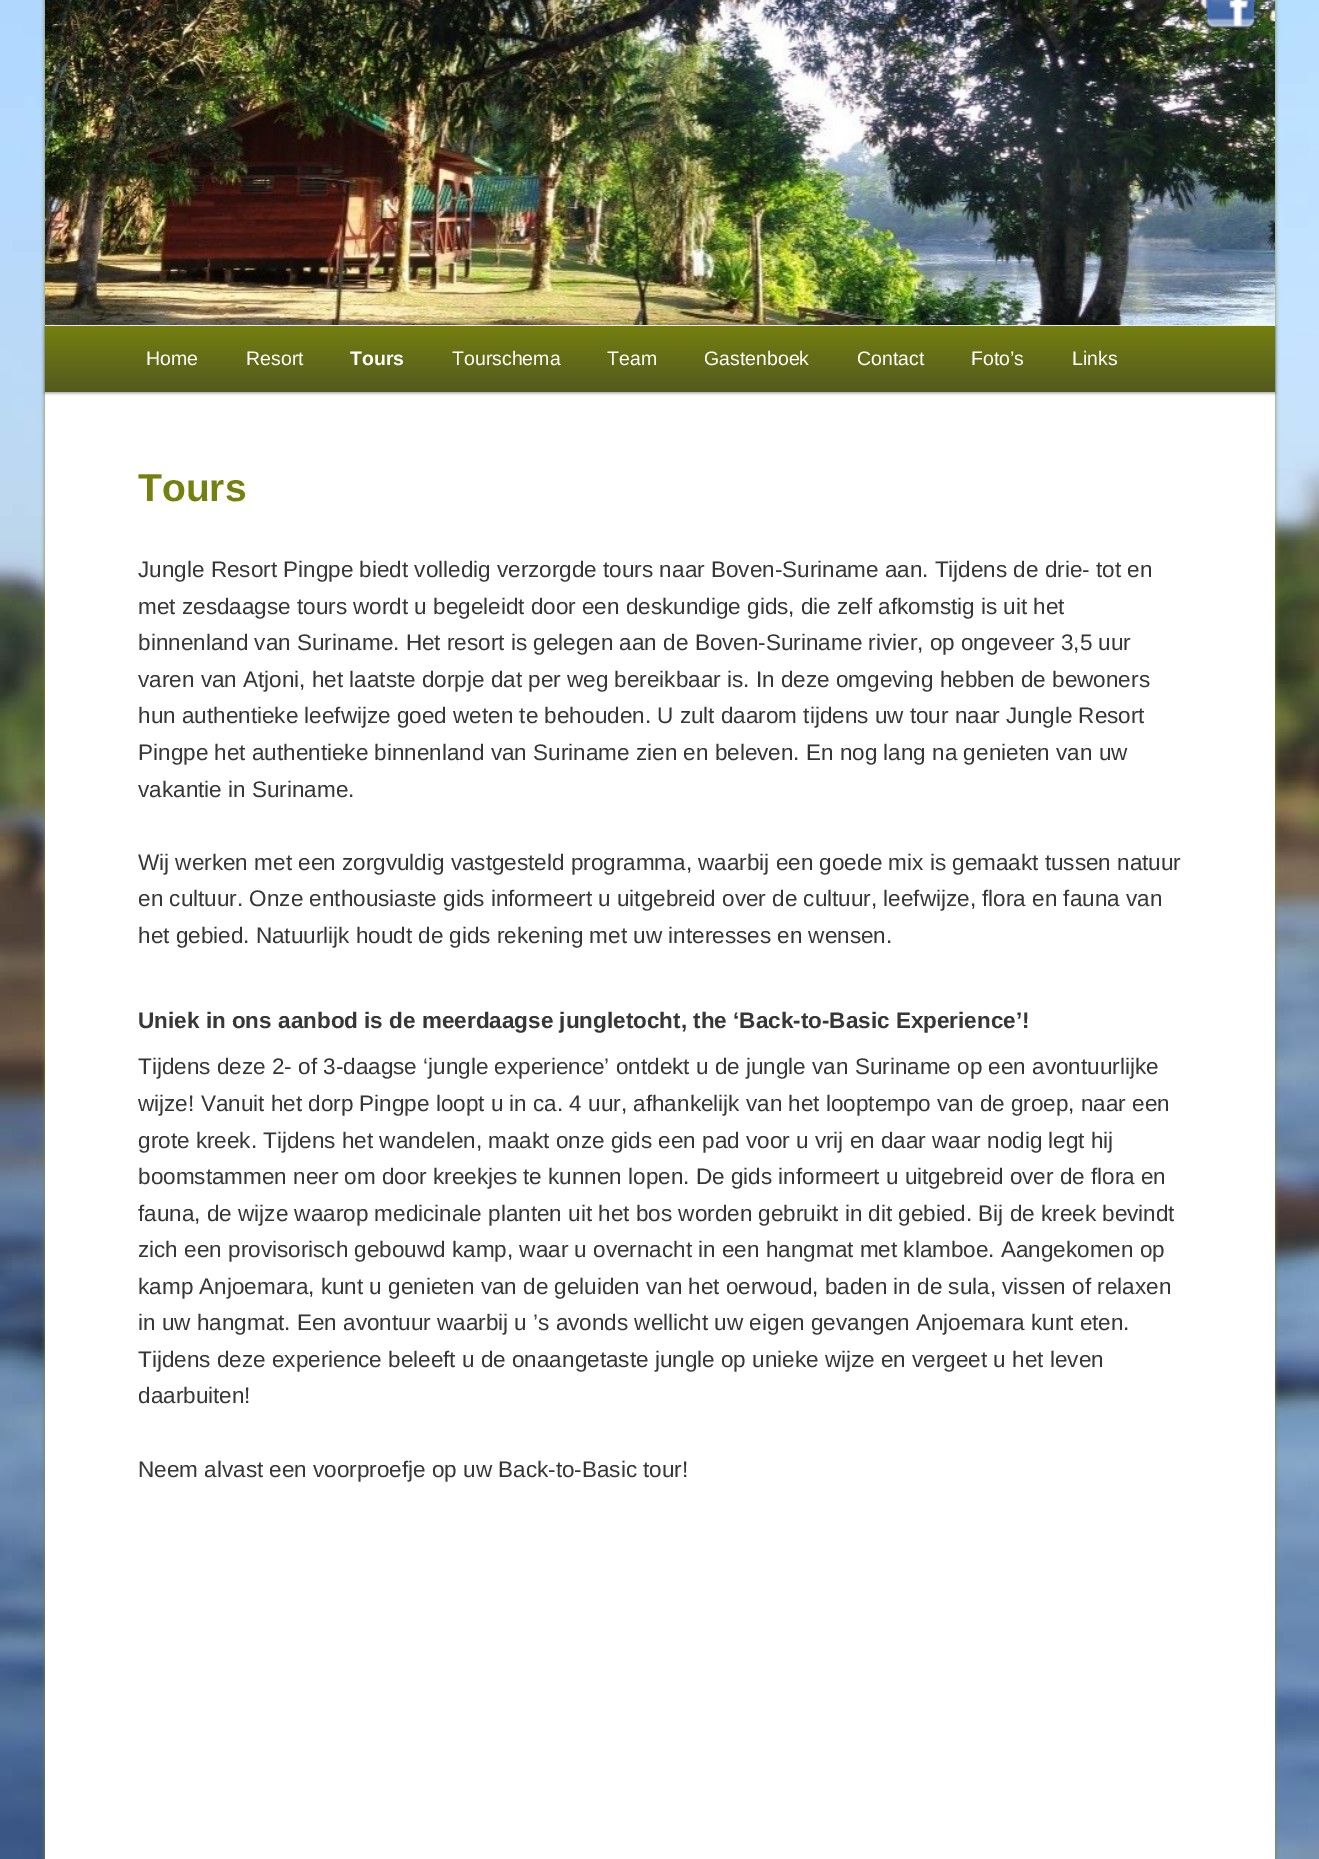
%!PS-Adobe-3.0
%%BoundingBox: 0 0 1319 1859
%%LanguageLevel: 3
%%Pages: 1
%%EndComments
%%BeginProlog
/m { moveto } bind def
/l { lineto } bind def
/h { closepath } bind def
/q { gsave } bind def
/Q { grestore } bind def
/fn { [ exch dup neg 0 0 3 -1 roll 0 0 ] selectfont } def
/tx { moveto show } def
/bx { rectfill } def
/al { dup .setfillconstantalpha .setstrokeconstantalpha } def
/rr { 5 dict begin { /r /h /w /y /x } { exch def } forall
  x r add y moveto x w add y 2 copy h add r arct x w add y h add x 1 index r arct
  x y h add x y r arct x y 2 copy exch w add exch r arct closepath end } def
/sh { 12 dict begin { /a /b /q /h /w /y /x } { exch def } forall gsave /was 0 def
  9 -2 -9 { dup b mul 4 div /e exch def 1 sub .425 mul 2.718 exch exp 1 add a .99 .min exch div /now exch def
    1 1 now sub 1 was sub div sub al /was now def
    w h .min e 2 mul add 0 gt { x e sub y e sub w e 2 mul add h e 2 mul add
      q e add b .6 mul add w h .min 2 div e add .min 0 .max rr fill } if } for grestore end } def
/im { 5 dict begin { /h /w /y /x /name } { exch def } forall
  gsave x y translate w h scale
  w h 8 [w 0 0 h 0 0] name (r) file false 3 colorimage grestore end } def
%%EndProlog
%%BeginSetup
<< /PageSize [1319 1859] /PageUsesTransparency true >> setpagedevice
%%EndSetup
%%Page: 1 1
0 .pushpdf14devicefilter
0 1859 translate 1 -1 scale
4 setmiterlimit
1 setgray
0 0 1319 1859 bx
(image0.raw) 0 0 1319 1859 im
0.51 0.506 0.184 setrgbcolor
45 -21 1230 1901 15 2 1 sh
1 setgray
45 325 1230 1534 bx
0 setgray
45 327 1230 66 0 1.5 0.4 sh
(image1.raw) 45 0 1230 325 im
(image2.raw) 1204 0 53 31 im
q 45 326 m 1275 326 l 1275 392 l 45 392 l h clip newpath
<< /ShadingType 2 /ColorSpace /DeviceRGB /Coords [660 325 660 392] /Extend [true true] /Function << /FunctionType 2 /Domain [0 1] /C0 [0.459 0.506 0.059] /C1 [0.325 0.349 0.125] /N 1 >> >> shfill Q
/LiberationSans-Regular 19.5 fn
1 setgray
(Home) 146 365 tx
(Resort) 246 365 tx
/LiberationSans-Bold 19.5 fn
(Tours) 350 365 tx
/LiberationSans-Regular 19.5 fn
(Tourschema) 452 365 tx
(Team) 607 365 tx
(Gastenboek) 704 365 tx
(Contact) 857 365 tx
(Foto’s) 971 365 tx
(Links) 1072 365 tx
/LiberationSans-Bold 39 fn
0.459 0.506 0.059 setrgbcolor
(Tours) 138 501 tx
/LiberationSans-Regular 22.5 fn
0.216 setgray
(Jungle Resort Pingpe biedt volledig verzorgde tours naar Boven-Suriname aan. Tijdens de drie- tot en) 138 577 tx
(met zesdaagse tours wordt u begeleidt door een deskundige gids, die zelf afkomstig is uit het) 138 614 tx
(binnenland van Suriname. Het resort is gelegen aan de Boven-Suriname rivier, op ongeveer 3,5 uur) 138 650 tx
(varen van Atjoni, het laatste dorpje dat per weg bereikbaar is. In deze omgeving hebben de bewoners) 138 687 tx
(hun authentieke leefwijze goed weten te behouden. U zult daarom tijdens uw tour naar Jungle Resort) 138 723 tx
(Pingpe het authentieke binnenland van Suriname zien en beleven. En nog lang na genieten van uw) 138 760 tx
(vakantie in Suriname.) 138 797 tx
(Wij werken met een zorgvuldig vastgesteld programma, waarbij een goede mix is gemaakt tussen natuur) 138 870 tx
(en cultuur. Onze enthousiaste gids informeert u uitgebreid over de cultuur, leefwijze, flora en fauna van) 138 906 tx
(het gebied. Natuurlijk houdt de gids rekening met uw interesses en wensen.) 138 943 tx
/LiberationSans-Bold 22.5 fn
(Uniek in ons aanbod is de meerdaagse jungletocht, the ‘Back-to-Basic Experience’!) 138 1028 tx
/LiberationSans-Regular 22.5 fn
(Tijdens deze 2- of 3-daagse ‘jungle experience’ ontdekt u de jungle van Suriname op een avontuurlijke) 138 1074 tx
(wijze! Vanuit het dorp Pingpe loopt u in ca. 4 uur, afhankelijk van het looptempo van de groep, naar een) 138 1111 tx
(grote kreek. Tijdens het wandelen, maakt onze gids een pad voor u vrij en daar waar nodig legt hij) 138 1148 tx
(boomstammen neer om door kreekjes te kunnen lopen. De gids informeert u uitgebreid over de flora en) 138 1184 tx
(fauna, de wijze waarop medicinale planten uit het bos worden gebruikt in dit gebied. Bij de kreek bevindt) 138 1221 tx
(zich een provisorisch gebouwd kamp, waar u overnacht in een hangmat met klamboe. Aangekomen op) 138 1257 tx
(kamp Anjoemara, kunt u genieten van de geluiden van het oerwoud, baden in de sula, vissen of relaxen) 138 1294 tx
(in uw hangmat. Een avontuur waarbij u ’s avonds wellicht uw eigen gevangen Anjoemara kunt eten.) 138 1330 tx
(Tijdens deze experience beleeft u de onaangetaste jungle op unieke wijze en vergeet u het leven) 138 1367 tx
(daarbuiten!) 138 1403 tx
(Neem alvast een voorproefje op uw Back-to-Basic tour!) 138 1477 tx
.poppdf14devicefilter showpage
%%EOF
